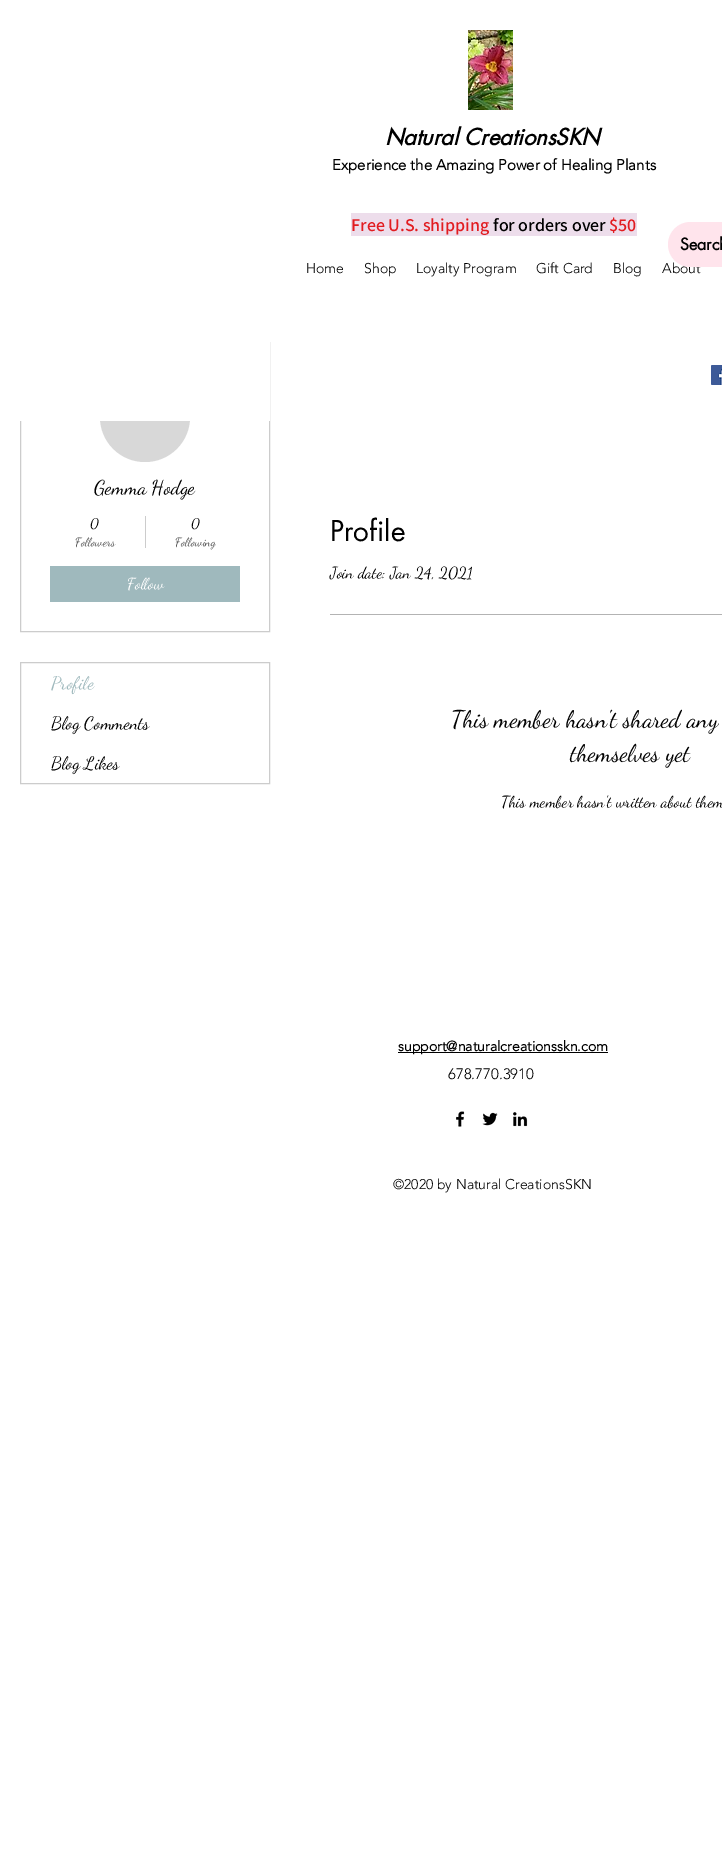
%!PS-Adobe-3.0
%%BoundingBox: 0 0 722 1861
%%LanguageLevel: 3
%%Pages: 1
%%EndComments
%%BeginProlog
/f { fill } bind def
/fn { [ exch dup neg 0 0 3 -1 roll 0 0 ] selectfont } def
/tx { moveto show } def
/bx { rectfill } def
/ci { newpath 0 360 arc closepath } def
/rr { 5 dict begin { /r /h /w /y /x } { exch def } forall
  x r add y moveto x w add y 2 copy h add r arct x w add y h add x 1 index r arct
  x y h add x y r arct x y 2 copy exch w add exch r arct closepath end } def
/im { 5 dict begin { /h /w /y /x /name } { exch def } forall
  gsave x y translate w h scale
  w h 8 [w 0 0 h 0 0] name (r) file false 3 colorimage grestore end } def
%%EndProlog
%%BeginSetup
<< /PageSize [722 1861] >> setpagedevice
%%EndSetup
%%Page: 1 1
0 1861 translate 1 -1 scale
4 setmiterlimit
1 setgray
0 0 722 1861 bx
(image0.raw) 468 30 45 80 im
/futura-BoldItalic 22 fn
0 setgray
(Natural CreationsSKN) 385 145 tx
/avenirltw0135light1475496-Bold 15 fn
(Experience the Amazing Power of Healing Plants) 332 170 tx
0.929 0.867 0.922 setrgbcolor
351 213 138 23 bx
/Assistant-SemiBold 18 fn
0.886 0.11 0.129 setrgbcolor
(Free U.S. shipping) 351 231 tx
0.929 0.867 0.922 setrgbcolor
489 213 148 23 bx
0 setgray
(for orders over) 493 231 tx
0.886 0.11 0.129 setrgbcolor
($50) 609 231 tx
/avenirltw0135light1475496-Light 14 fn
0 setgray
(Home) 306 273 tx
(Shop) 364 273 tx
(Loyalty Program) 416 273 tx
(Gift Card) 536 273 tx
(Blog) 613 273 tx
(About) 662 273 tx
1 0.894 0.925 setrgbcolor
668 222 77 45 22.5 rr f
/futura-Bold 16 fn
0 setgray
(Search) 680 250 tx
(image1.raw) 711 365 11 20 im
0.8 setgray
20.5 342.5 249 289 rectstroke
0.847 setgray
145 417 45 ci f
1 setgray
20 342 250 79 bx
/DancingScript-Regular 20 fn
0 setgray
(Gemma Hodge) 94 494 tx
/DancingScript-Regular 14 fn
(0) 90 528 tx
/DancingScript-Regular 12 fn
0.302 setgray
(Followers) 75 546 tx
0.8 setgray
145 516 1 32 bx
/DancingScript-Regular 14 fn
0 setgray
(0) 191 528 tx
/DancingScript-Regular 12 fn
0.302 setgray
(Following) 175 546 tx
0.624 0.725 0.741 setrgbcolor
50 566 190 36 bx
/DancingScript-Regular 16 fn
1 setgray
(Follow) 127 589 tx
0.8 setgray
20.5 662.5 249 121 rectstroke
/DancingScript-Regular 18 fn
0.624 0.725 0.741 setrgbcolor
(Profile) 51 689 tx
0 setgray
(Blog Comments) 51 729 tx
(Blog Likes) 51 769 tx
/futura-Regular 28 fn
(Profile) 330 541 tx
/DancingScript-Regular 16 fn
(Join date: Jan 24, 2021) 330 578 tx
0.702 setgray
330 614 392 1 bx
/DancingScript-Regular 24 fn
0 setgray
(This member hasn't shared any) 451 727 tx
(themselves yet) 570 761 tx
/DancingScript-Regular 16 fn
(This member hasn't written about them) 501 807 tx
398 1052 210 1 bx
/avenirltw0135light1475496-Bold 14 fn
(support@naturalcreationsskn.com) 398 1051 tx
/avenirltw0135light1475496-Light 15 fn
(678.770.3910) 448 1079 tx
(image2.raw) 456 1111 9 16 im
(image3.raw) 482 1112 16 14 im
(image4.raw) 513 1112 15 15 im
/avenirltw0135light1475496-Light 14 fn
(©2020 by Natural CreationsSKN) 393 1189 tx
showpage
%%EOF
